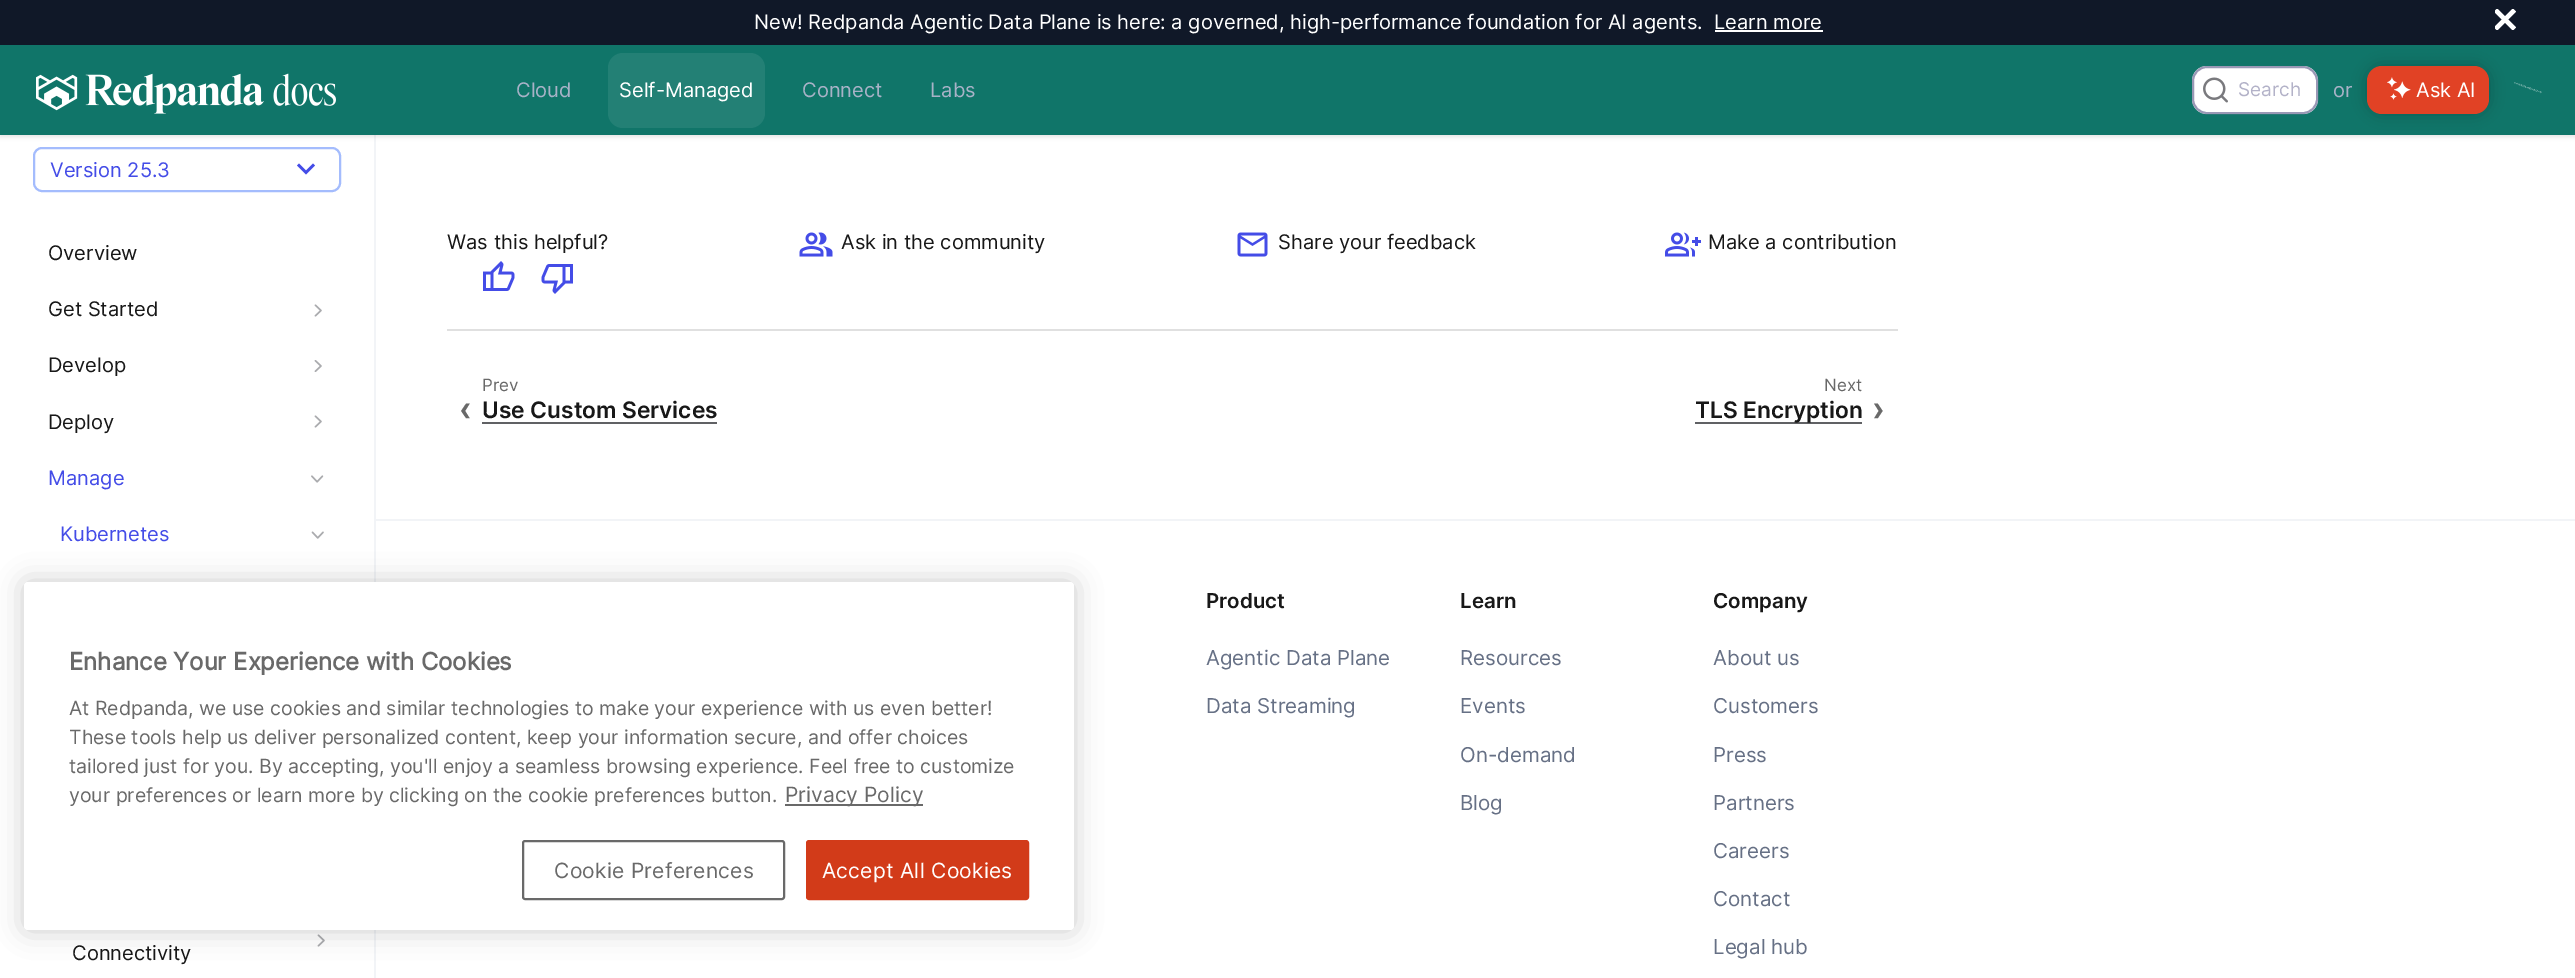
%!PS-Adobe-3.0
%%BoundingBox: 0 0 2575 978
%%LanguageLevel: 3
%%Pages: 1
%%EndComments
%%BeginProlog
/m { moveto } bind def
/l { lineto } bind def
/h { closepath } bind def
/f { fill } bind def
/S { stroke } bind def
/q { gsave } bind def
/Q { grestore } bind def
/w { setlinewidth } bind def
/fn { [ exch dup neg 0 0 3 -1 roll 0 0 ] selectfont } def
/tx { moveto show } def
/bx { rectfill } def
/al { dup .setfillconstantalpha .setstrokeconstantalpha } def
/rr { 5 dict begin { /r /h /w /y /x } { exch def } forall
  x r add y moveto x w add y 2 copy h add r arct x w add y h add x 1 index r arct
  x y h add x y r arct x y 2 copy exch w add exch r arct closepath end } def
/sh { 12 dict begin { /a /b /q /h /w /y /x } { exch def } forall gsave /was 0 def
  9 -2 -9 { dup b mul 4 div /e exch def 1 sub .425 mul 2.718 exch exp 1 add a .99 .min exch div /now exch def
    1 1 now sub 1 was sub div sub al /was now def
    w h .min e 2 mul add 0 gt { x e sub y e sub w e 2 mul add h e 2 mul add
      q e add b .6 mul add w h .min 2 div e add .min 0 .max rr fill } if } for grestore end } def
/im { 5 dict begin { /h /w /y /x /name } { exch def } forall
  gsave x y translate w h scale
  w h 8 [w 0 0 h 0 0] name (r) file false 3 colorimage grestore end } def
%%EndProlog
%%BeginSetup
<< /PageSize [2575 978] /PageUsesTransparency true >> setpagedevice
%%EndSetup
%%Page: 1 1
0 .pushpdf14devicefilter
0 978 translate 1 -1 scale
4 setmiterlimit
1 setgray
0 0 2575 978 bx
0.063 0.094 0.157 setrgbcolor
0 0 2575 45 bx
/Inter-Regular 20.1 fn
1 setgray
(New! Redpanda Agentic Data Plane is here: a governed, high-performance foundation for AI agents.) 754 29 tx
(Learn more) 1714 29 tx
1715 30 108 2 bx
q
2495 9 21 21 rectclip
4.3 w
2495.5 10 m 2514.5 29 l 2514.5 10 m 2495.5 29 l S
Q
0.949 0.957 0.969 setrgbcolor
375 519 2200 2 bx
374 135 2 843 bx
0 setgray
0 47 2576 90 0 2 0.1 sh
0.063 0.459 0.412 setrgbcolor
0 45 2575 90 bx
(image0.raw) 36 73 300 41 im
0.659 0.698 0.78 setrgbcolor
(Cloud) 516 97 tx
0.137 0.502 0.459 setrgbcolor
608 53 157 75 15 rr f
1 setgray
(Self-Managed) 619 97 tx
0.659 0.698 0.78 setrgbcolor
(Connect) 802 97 tx
(Labs) 930 97 tx
1 setgray
2192 66 126 48 15 rr f
0.8 al
0.502 0.494 0.639 setrgbcolor
2 w
2193 67 124 46 14 rr S
1 al
(image1.raw) 2203 77 25 26 im
/Inter-Regular 19 fn
0.702 0.698 0.784 setrgbcolor
(Search) 2238 96 tx
/Inter-Regular 20.1 fn
0.659 0.698 0.78 setrgbcolor
(or) 2333 97 tx
0 setgray
2367 66 122 48 15 7.5 0.2 sh
0.882 0.259 0.145 setrgbcolor
2367 66 122 48 15 rr f
(image2.raw) 2387 77 24 23 im
1 setgray
(Ask AI) 2416 97 tx
(image3.raw) 2514 82 28 12 im
0.643 0.737 0.992 setrgbcolor
34 148 306 43 8 rr S
0.267 0.298 0.906 setrgbcolor
(Version 25.3) 50 177 tx
306 174.5 m 297 165.5 l 299 163.5 l 306 170.5 l 313 163.5 l 315 165.5 l h f
0.094 setgray
(Overview) 48 260 tx
(Get Started) 48 316 tx
(image4.raw) 314 304 8 13 im
(Develop) 48 372 tx
(image5.raw) 314 360 8 12 im
(Deploy) 48 429 tx
(image4.raw) 314 415 8 13 im
0.267 0.298 0.906 setrgbcolor
(Manage) 48 485 tx
(image6.raw) 311 475 13 8 im
(Kubernetes) 60 541 tx
(image7.raw) 311 531 13 8 im
(image4.raw) 317 934 8 13 im
0.094 setgray
(Connectivity) 72 960 tx
(Was this helpful?) 447 249 tx
(image8.raw) 483 261 32 30 im
(image9.raw) 541 264 32 30 im
(image10.raw) 799 232 34 25 im
(Ask in the community) 841 249 tx
(image11.raw) 1237 232 31 25 im
(Share your feedback) 1278 249 tx
(image12.raw) 1665 232 36 25 im
(Make a contribution) 1708 249 tx
0.878 setgray
447 329 1451 2 bx
/Inter-Regular 17 fn
0.412 setgray
(Prev) 482 391 tx
/Inter-SemiBold 34 fn
(‹) 459 421 tx
/Inter-SemiBold 22.75 fn
0.094 setgray
(Use Custom Services) 482 418 tx
0.376 0.38 0.392 setrgbcolor
482 422 235 2 bx
/Inter-Regular 17 fn
0.412 setgray
(Next) 1824 391 tx
0.376 0.38 0.392 setrgbcolor
1695 422 167 2 bx
/Inter-SemiBold 22.75 fn
0.094 setgray
(TLS Encryption) 1695 418 tx
/Inter-SemiBold 34 fn
0.412 setgray
(›) 1872 421 tx
/Inter-SemiBold 20.5 fn
0.094 setgray
(Product) 1206 608 tx
/Inter-Regular 20.5 fn
0.4 0.439 0.522 setrgbcolor
(Agentic Data Plane) 1206 665 tx
(Data Streaming) 1206 713 tx
/Inter-SemiBold 20.5 fn
0.094 setgray
(Learn) 1460 608 tx
/Inter-Regular 20.5 fn
0.4 0.439 0.522 setrgbcolor
(Resources) 1460 665 tx
(Events) 1460 713 tx
(On-demand) 1460 762 tx
(Blog) 1460 810 tx
/Inter-SemiBold 20.5 fn
0.094 setgray
(Company) 1713 608 tx
/Inter-Regular 20.5 fn
0.4 0.439 0.522 setrgbcolor
(About us) 1713 665 tx
(Customers) 1713 713 tx
(Press) 1713 762 tx
(Partners) 1713 810 tx
(Careers) 1713 858 tx
(Contact) 1713 906 tx
(Legal hub) 1713 954 tx
0 setgray
24 582 1050 348 4 13.5 0.2 sh
1 setgray
24 582 1050 348 4 rr f
/Inter-Bold 24 fn
0.412 setgray
(Enhance Your Experience with Cookies) 69 670 tx
/Inter-Regular 19.5 fn
(At Redpanda, we use cookies and similar technologies to make your experience with us even better!) 69 715 tx
(These tools help us deliver personalized content, keep your information secure, and offer choices) 69 744 tx
(tailored just for you. By accepting, you'll enjoy a seamless browsing experience. Feel free to customize) 69 773 tx
(your preferences or learn more by clicking on the cookie preferences button.) 69 802 tx
785 804 138 2 bx
/Inter-Regular 21 fn
(Privacy Policy) 785 802 tx
523 841 261 58 2 rr S
554 878 m 0.25 0 (Cookie Preferences) ashow
0.824 0.231 0.098 setrgbcolor
807 841 221 58 2 rr q f Q
S
1 setgray
822 878 m 0.25 0 (Accept All Cookies) ashow
.poppdf14devicefilter showpage
%%EOF
